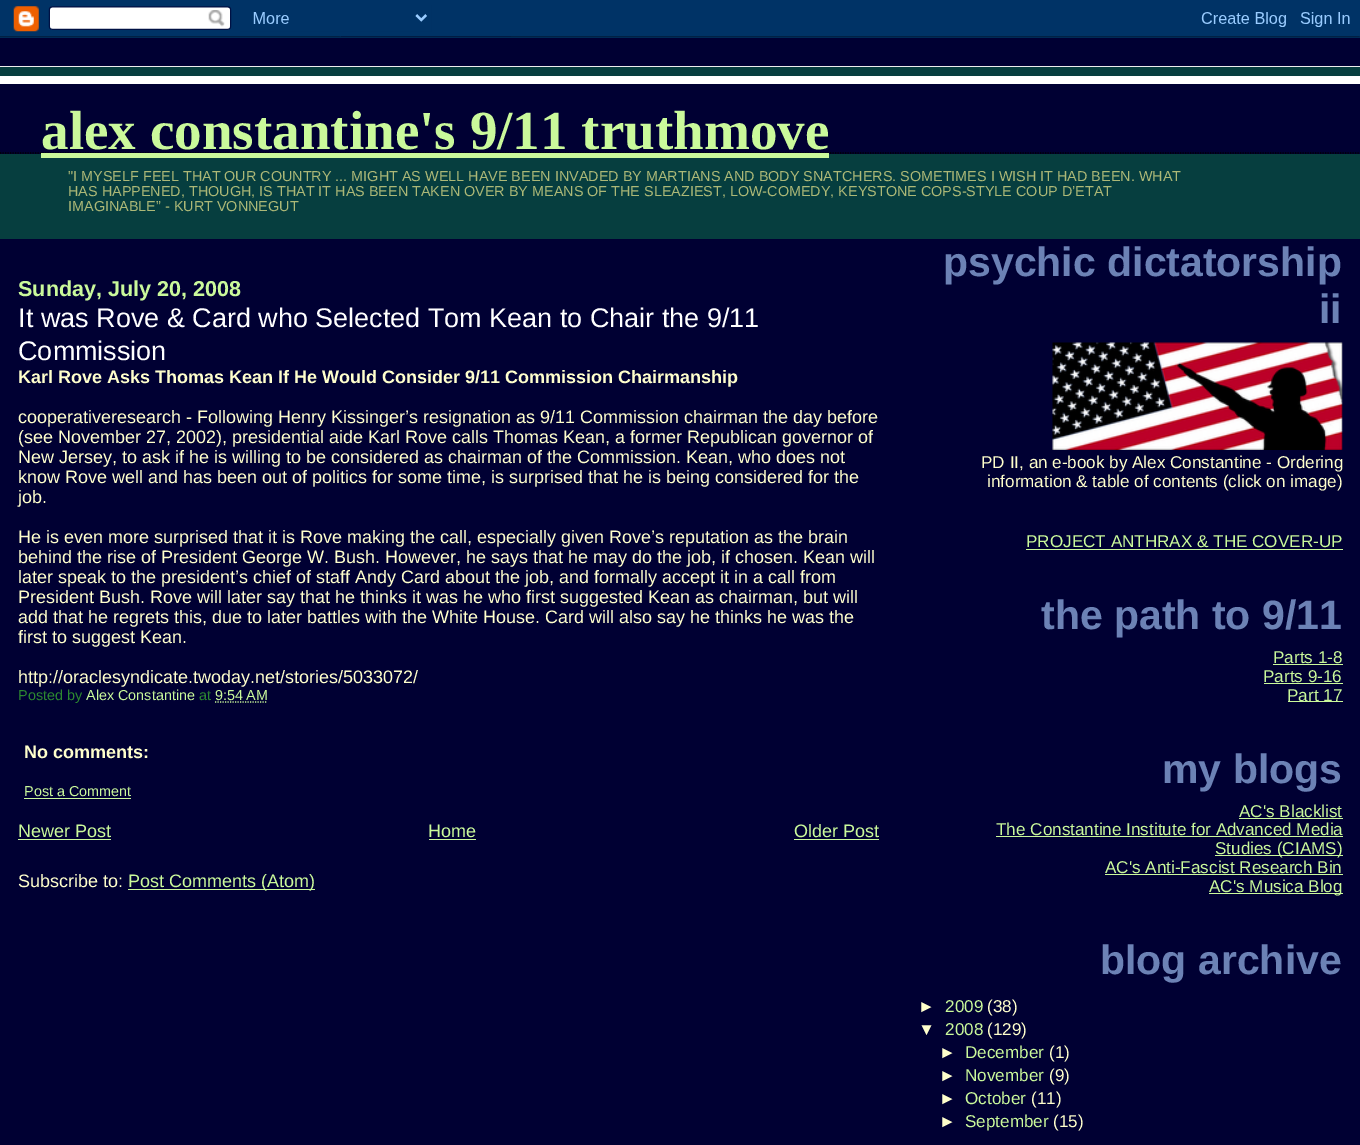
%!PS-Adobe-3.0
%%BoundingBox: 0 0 1360 1145
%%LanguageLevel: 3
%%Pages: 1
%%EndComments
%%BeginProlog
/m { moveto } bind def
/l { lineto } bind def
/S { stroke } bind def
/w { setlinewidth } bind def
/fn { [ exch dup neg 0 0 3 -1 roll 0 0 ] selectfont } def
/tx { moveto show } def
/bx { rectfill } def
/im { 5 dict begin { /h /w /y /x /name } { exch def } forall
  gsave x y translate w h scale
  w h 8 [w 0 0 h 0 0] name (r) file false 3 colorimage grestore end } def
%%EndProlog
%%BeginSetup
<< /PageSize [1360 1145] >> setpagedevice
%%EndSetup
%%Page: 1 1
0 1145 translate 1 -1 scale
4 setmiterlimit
0 0 0.2 setrgbcolor
0 0 1360 1145 bx
(image0.raw) 0 0 1360 38 im
0.024 0.243 0.247 setrgbcolor
0 67 1360 172 bx
0.933 setgray
0 66 1360 1 bx
0 0 0.2 setrgbcolor
0 84 1360 70 bx
1 setgray
0 76 1360 8 bx
0 setgray
1.2 w
[1.25 1.25] 0 setdash
0 153 m 1360 153 l S
/LiberationSerif-Bold 55.1 fn
0.792 0.976 0.608 setrgbcolor
(alex constantine's 9/11 truthmove) 41 149 tx
41 153 788 5 bx
/LiberationSans-Regular 14.4 fn
0.675 0.722 0.467 setrgbcolor
("I MYSELF FEEL THAT OUR COUNTRY ... MIGHT AS WELL HAVE BEEN INVADED BY MARTIANS AND BODY SNATCHERS. SOMETIMES I WISH IT HAD BEEN. WHAT) 68 181 tx
(HAS HAPPENED, THOUGH, IS THAT IT HAS BEEN TAKEN OVER BY MEANS OF THE SLEAZIEST, LOW-COMEDY, KEYSTONE COPS-STYLE COUP D’ETAT) 68 196 tx
(IMAGINABLE” - KURT VONNEGUT) 68 211 tx
/LiberationSans-Bold 21.6 fn
0.792 0.976 0.608 setrgbcolor
(Sunday, July 20, 2008) 18 296 tx
/LiberationSans-Regular 27 fn
1 setgray
(It was Rove & Card who Selected Tom Kean to Chair the 9/11) 18 327 tx
(Commission) 18 360 tx
/LiberationSans-Bold 18 fn
1 1 0.8 setrgbcolor
(Karl Rove Asks Thomas Kean If He Would Consider 9/11 Commission Chairmanship) 18 383 tx
/LiberationSans-Regular 18 fn
(cooperativeresearch - Following Henry Kissinger’s resignation as 9/11 Commission chairman the day before) 18 423 tx
(\(see November 27, 2002\), presidential aide Karl Rove calls Thomas Kean, a former Republican governor of) 18 443 tx
(New Jersey, to ask if he is willing to be considered as chairman of the Commission. Kean, who does not) 18 463 tx
(know Rove well and has been out of politics for some time, is surprised that he is being considered for the) 18 483 tx
(job.) 18 503 tx
(He is even more surprised that it is Rove making the call, especially given Rove’s reputation as the brain) 18 543 tx
(behind the rise of President George W. Bush. However, he says that he may do the job, if chosen. Kean will) 18 563 tx
(later speak to the president’s chief of staff Andy Card about the job, and formally accept it in a call from) 18 583 tx
(President Bush. Rove will later say that he thinks it was he who first suggested Kean as chairman, but will) 18 603 tx
(add that he regrets this, due to later battles with the White House. Card will also say he thinks he was the) 18 623 tx
(first to suggest Kean.) 18 643 tx
(http://oraclesyndicate.twoday.net/stories/5033072/) 18 683 tx
/LiberationSans-Regular 14.4 fn
0.176 0.537 0.188 setrgbcolor
(Posted by) 18 700 tx
0.792 0.976 0.608 setrgbcolor
(Alex Constantine) 86 700 tx
0.176 0.537 0.188 setrgbcolor
(at) 199 700 tx
0.792 0.976 0.608 setrgbcolor
(9:54 AM) 215 700 tx
215 702 m 267.5 702 l S
/LiberationSans-Bold 18 fn
1 1 0.8 setrgbcolor
(No comments:) 24 758 tx
/LiberationSans-Regular 14.4 fn
0.792 0.976 0.608 setrgbcolor
(Post a Comment) 24 796 tx
24 798 107 1 bx
/LiberationSans-Regular 18 fn
(Newer Post) 18 837 tx
18 839 93 1 bx
(Home) 428 837 tx
429 839 47 1 bx
(Older Post) 794 837 tx
794 839 85 1 bx
1 1 0.8 setrgbcolor
(Subscribe to:) 18 887 tx
0.792 0.976 0.608 setrgbcolor
128 889 187 1 bx
(Post Comments \(Atom\)) 128 887 tx
/LiberationSans-Bold 41 fn
0.424 0.51 0.71 setrgbcolor
(psychic dictatorship) 943 276 tx
(ii) 1319 323 tx
(image1.raw) 1052 342 291 108 im
/LiberationSans-Regular 17.1 fn
1 1 0.8 setrgbcolor
(PD II, an e-book by Alex Constantine - Ordering) 981 468 tx
(information & table of contents \(click on image\)) 987 487 tx
0.792 0.976 0.608 setrgbcolor
(PROJECT ANTHRAX & THE COVER-UP) 1026 547 tx
1026 549 317 1 bx
/LiberationSans-Bold 41 fn
0.424 0.51 0.71 setrgbcolor
(the path to 9/11) 1041 629 tx
/LiberationSans-Regular 17.1 fn
0.792 0.976 0.608 setrgbcolor
(Parts 1-8) 1273 663 tx
1273 664 70 1 bx
(Parts 9-16) 1263 682 tx
1264 683 79 1 bx
1288 701 55 1 bx
(Part 17) 1287 701 tx
/LiberationSans-Bold 41 fn
0.424 0.51 0.71 setrgbcolor
(my blogs) 1162 783 tx
/LiberationSans-Regular 17.1 fn
0.792 0.976 0.608 setrgbcolor
(AC's Blacklist) 1239 817 tx
1239 818 104 1 bx
(The Constantine Institute for Advanced Media) 996 835 tx
996 836 347 1 bx
1215 855 128 1 bx
(Studies \(CIAMS\)) 1215 854 tx
(AC's Anti-Fascist Research Bin) 1105 873 tx
1105 874 238 1 bx
1209 893 134 1 bx
(AC's Musica Blog) 1209 892 tx
/LiberationSans-Bold 41 fn
0.424 0.51 0.71 setrgbcolor
(blog archive) 1100 974 tx
/LiberationSans-Regular 17.1 fn
1 1 0.8 setrgbcolor
(►) 918 1012 tx
0.792 0.976 0.608 setrgbcolor
(2009) 945 1012 tx
1 1 0.8 setrgbcolor
(\(38\)) 987 1012 tx
(▼) 918 1035 tx
0.792 0.976 0.608 setrgbcolor
(2008) 945 1035 tx
1 1 0.8 setrgbcolor
(\(129\)) 987 1035 tx
(►) 939 1058 tx
0.792 0.976 0.608 setrgbcolor
(December) 965 1058 tx
1 1 0.8 setrgbcolor
(\(1\)) 1049 1058 tx
(►) 939 1081 tx
0.792 0.976 0.608 setrgbcolor
(November) 965 1081 tx
1 1 0.8 setrgbcolor
(\(9\)) 1049 1081 tx
(►) 939 1104 tx
0.792 0.976 0.608 setrgbcolor
(October) 965 1104 tx
1 1 0.8 setrgbcolor
(\(11\)) 1031 1104 tx
(►) 939 1127 tx
0.792 0.976 0.608 setrgbcolor
(September) 965 1127 tx
1 1 0.8 setrgbcolor
(\(15\)) 1053 1127 tx
showpage
%%EOF
